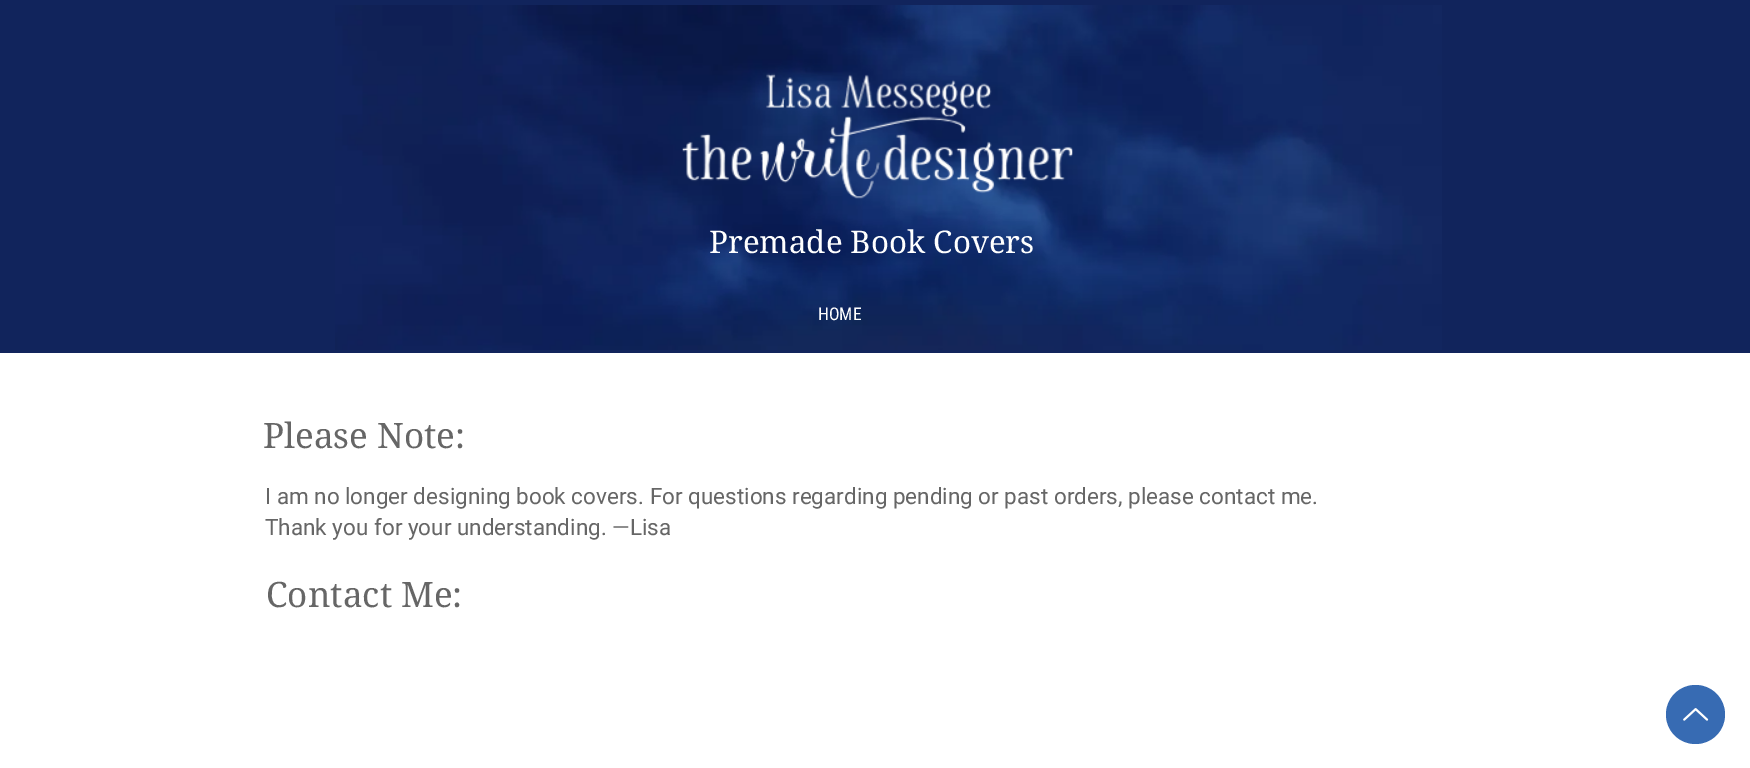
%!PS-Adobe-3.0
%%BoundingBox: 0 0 1750 768
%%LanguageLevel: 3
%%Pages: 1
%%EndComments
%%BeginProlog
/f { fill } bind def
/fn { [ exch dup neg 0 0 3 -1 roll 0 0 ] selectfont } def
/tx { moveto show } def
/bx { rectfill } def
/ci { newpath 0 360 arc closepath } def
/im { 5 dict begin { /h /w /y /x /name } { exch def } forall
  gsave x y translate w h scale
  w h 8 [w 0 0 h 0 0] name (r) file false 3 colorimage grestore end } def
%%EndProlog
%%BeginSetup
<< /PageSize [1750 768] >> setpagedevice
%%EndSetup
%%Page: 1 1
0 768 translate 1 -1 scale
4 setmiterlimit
1 setgray
0 0 1750 768 bx
0.067 0.141 0.361 setrgbcolor
0 0 1750 353 bx
(image0.raw) 335 5 1107 345 im
(image1.raw) 682 73 391 126 im
/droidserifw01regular-Regular 31.25 fn
1 setgray
(Premade Book Covers) 709 253 tx
/RobotoCondensed-Regular 17.5 fn
(HOME) 818 320 tx
/droidserifw01regular-Regular 35 fn
0.4 setgray
(Please Note:) 263 448 tx
/Roboto-Regular 22.5 fn
(I am no longer designing book covers. For questions regarding pending or past orders, please contact me.) 265 504 tx
(Thank you for your understanding. —Lisa) 265 535 tx
/droidserifw01regular-Regular 35 fn
(Contact Me:) 266 607 tx
0.216 0.42 0.702 setrgbcolor
1695.5 714.5 29.5 ci f
(image2.raw) 1683 708 26 13 im
showpage
%%EOF
